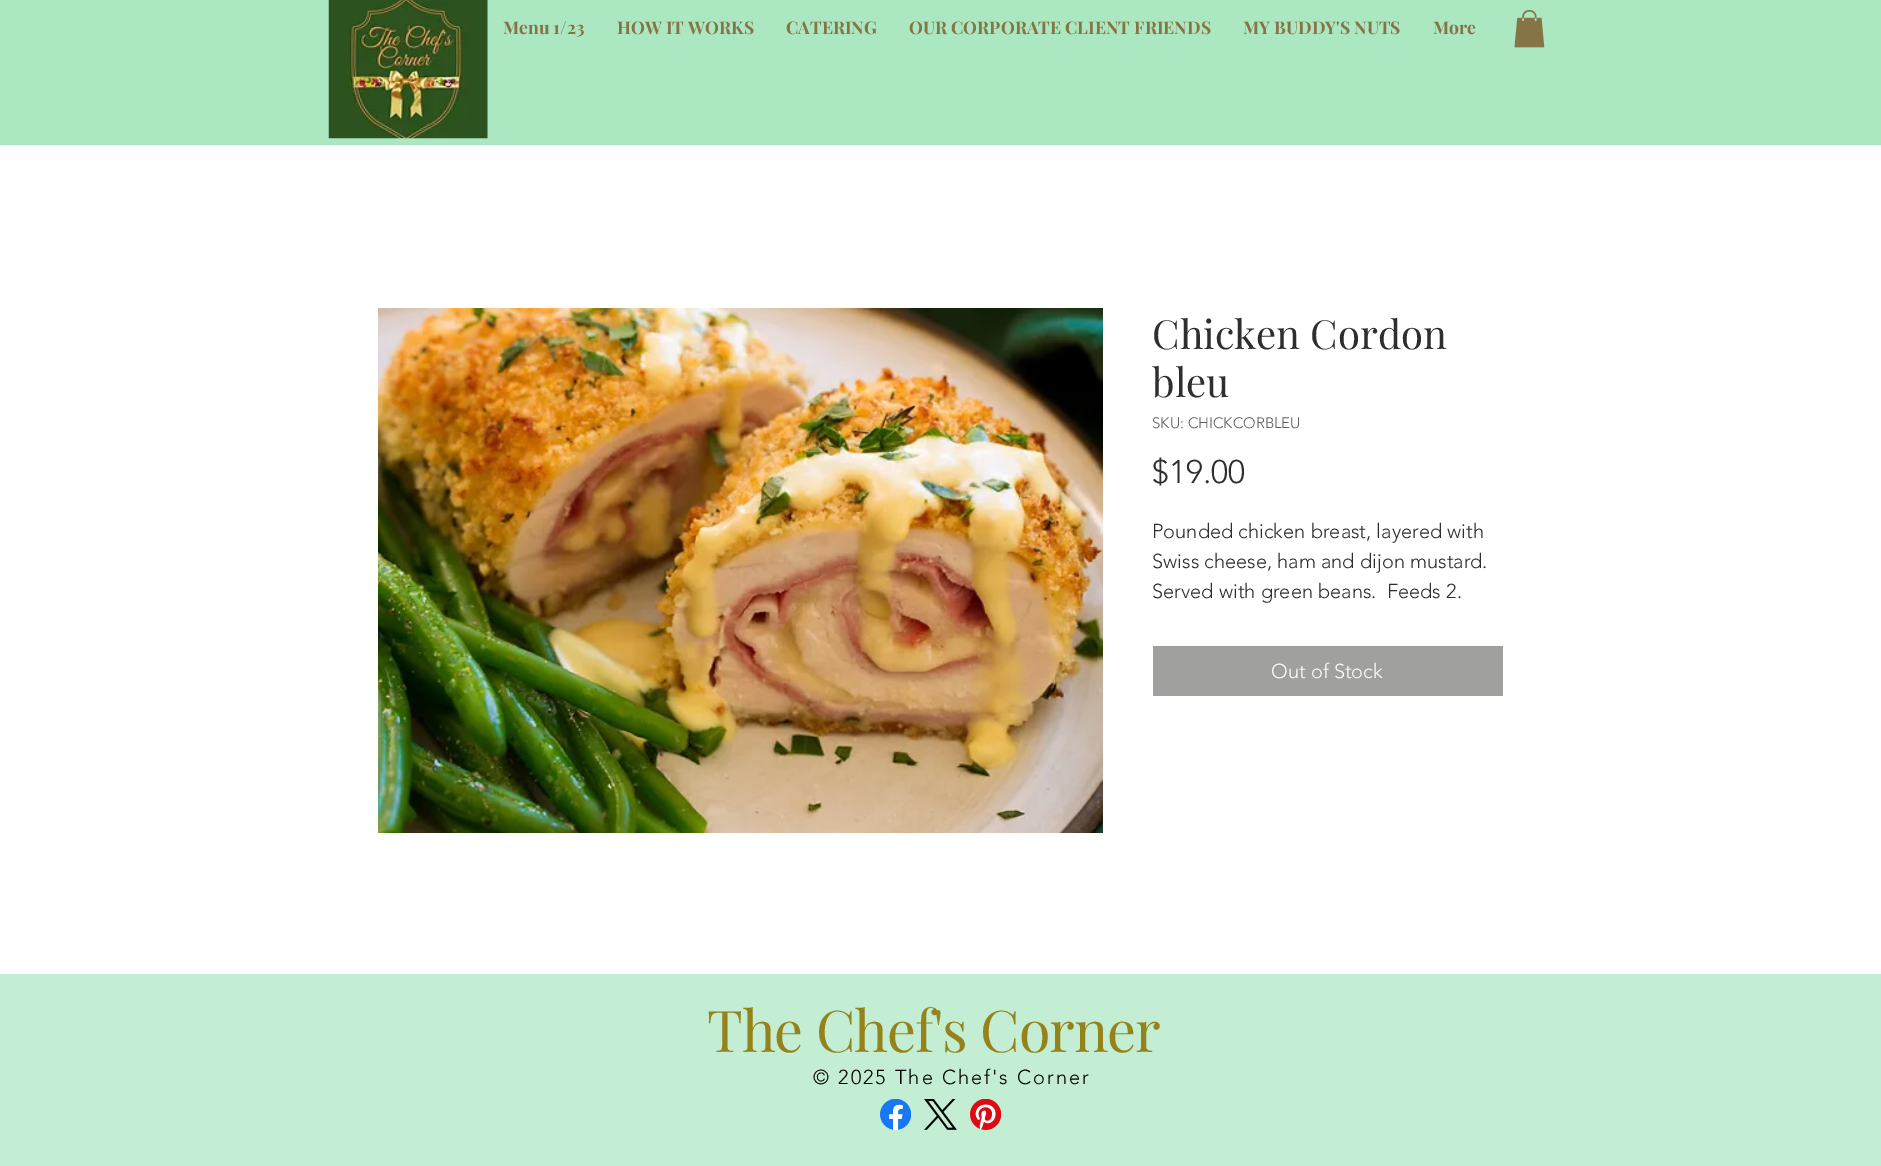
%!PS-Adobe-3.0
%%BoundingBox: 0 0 1881 1166
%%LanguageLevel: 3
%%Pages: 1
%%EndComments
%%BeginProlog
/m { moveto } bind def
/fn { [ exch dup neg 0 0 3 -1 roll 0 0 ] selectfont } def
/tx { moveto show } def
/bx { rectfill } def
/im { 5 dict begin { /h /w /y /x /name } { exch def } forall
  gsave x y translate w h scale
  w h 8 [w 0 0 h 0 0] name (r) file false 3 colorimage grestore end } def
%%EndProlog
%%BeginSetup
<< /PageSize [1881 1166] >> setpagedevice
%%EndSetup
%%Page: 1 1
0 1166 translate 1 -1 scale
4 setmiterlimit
1 setgray
0 0 1881 1166 bx
0.671 0.906 0.757 setrgbcolor
0 0 1881 145 bx
(image0.raw) 328 0 160 139 im
/PlayfairDisplay-Bold 17.5 fn
0.522 0.455 0.275 setrgbcolor
(Menu 1/23) 503 34 tx
(HOW IT WORKS) 617 34 tx
(CATERING) 786 34 tx
(OUR CORPORATE CLIENT FRIENDS) 909 34 tx
(MY BUDDY'S NUTS) 1243 34 tx
(More) 1433 34 tx
(image1.raw) 1514 10 31 38 im
(image2.raw) 378 308 725 525 im
/PlayfairDisplay-Regular 40 fn
0.184 0.18 0.18 setrgbcolor
(Chicken Cordon) 1152 349 tx
(bleu) 1152 397 tx
/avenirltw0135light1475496-Light 15 fn
0.376 0.369 0.369 setrgbcolor
(SKU: CHICKCORBLEU) 1152 428 tx
/avenirltw0135light1475496-Light 32.5 fn
0.184 0.18 0.18 setrgbcolor
($19.00) 1152 483 tx
/avenirltw0135light1475496-Light 20 fn
(Pounded chicken breast, layered with) 1152 538 tx
(Swiss cheese, ham and dijon mustard.) 1152 568 tx
(Served with green beans.  Feeds 2.) 1152 598 tx
0.627 0.627 0.624 setrgbcolor
1153 646 350 50 bx
1 setgray
(Out of Stock) 1271 678 tx
0.769 0.933 0.827 setrgbcolor
0 974 1881 192 bx
/PlayfairDisplay-Regular 57.5 fn
0.58 0.51 0.106 setrgbcolor
707 1052 m -1.1 0 (The Chef's Corner) ashow
/avenirltw0135light1475496-Light 20 fn
0 setgray
813 1084 m 2 0 (© 2025 The Chef's Corner) ashow
(image3.raw) 880 1099 31 31 im
(image4.raw) 924 1099 33 31 im
(image5.raw) 970 1099 31 31 im
showpage
%%EOF
